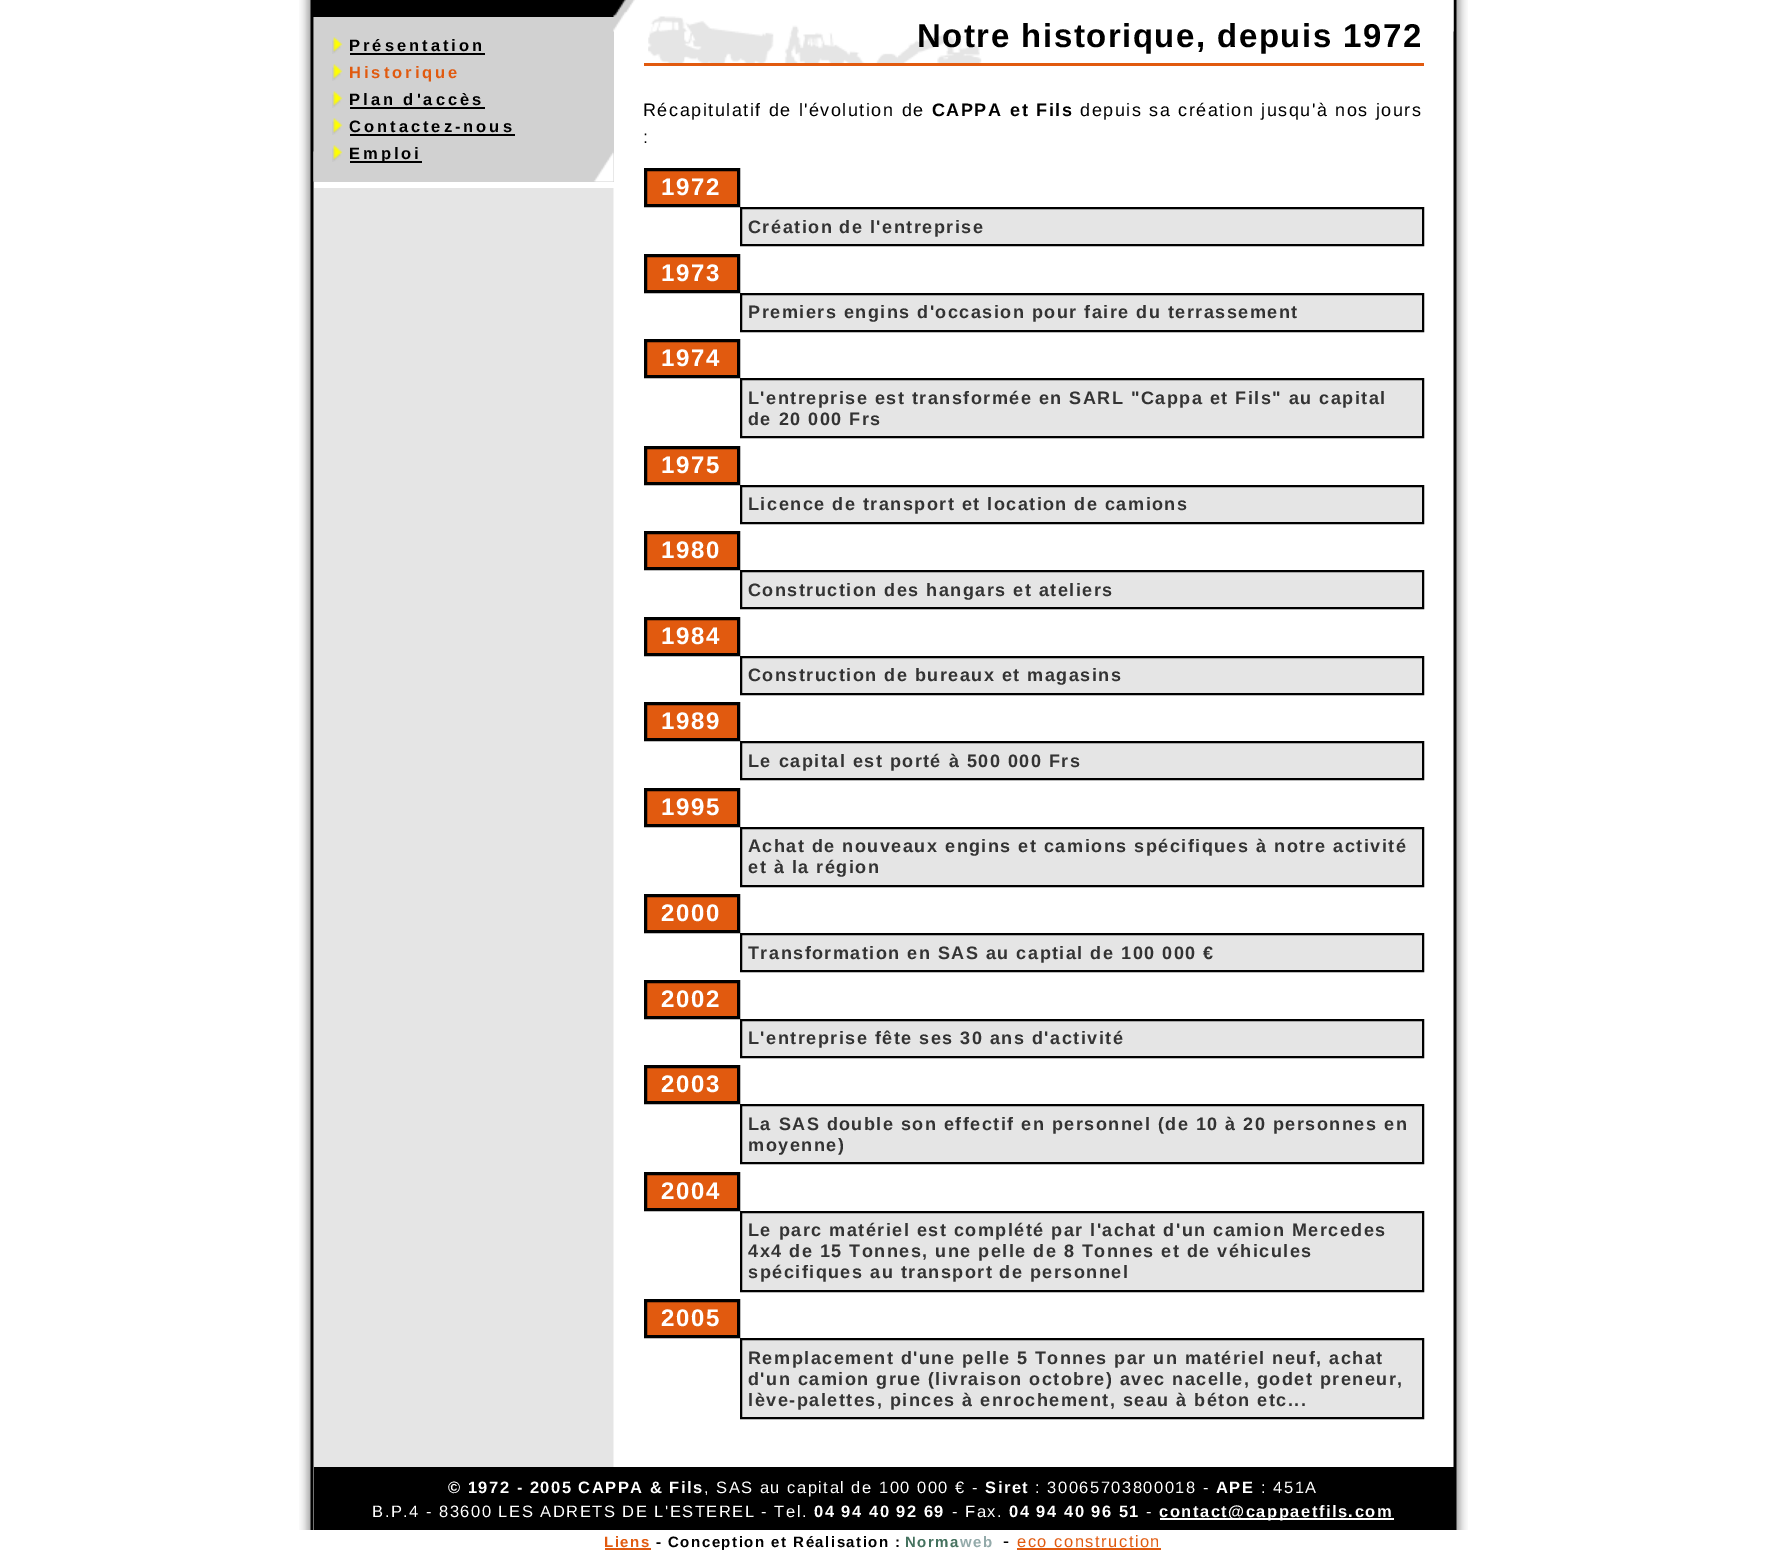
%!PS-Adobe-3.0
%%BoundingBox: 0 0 1765 1551
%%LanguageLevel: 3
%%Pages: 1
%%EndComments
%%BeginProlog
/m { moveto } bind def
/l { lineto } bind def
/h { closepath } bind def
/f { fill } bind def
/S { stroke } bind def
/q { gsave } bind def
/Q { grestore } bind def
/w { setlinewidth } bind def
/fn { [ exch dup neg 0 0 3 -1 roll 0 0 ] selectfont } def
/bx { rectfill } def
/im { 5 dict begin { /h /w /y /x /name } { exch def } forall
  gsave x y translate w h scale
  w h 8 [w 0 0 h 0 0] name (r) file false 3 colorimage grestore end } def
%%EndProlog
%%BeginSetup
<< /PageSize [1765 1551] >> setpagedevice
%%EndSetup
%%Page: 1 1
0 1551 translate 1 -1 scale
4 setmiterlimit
1 setgray
0 0 1765 1551 bx
(image0.raw) 299 0 1169 1530 im
0 setgray
313 0 301 17 bx
0.82 setgray
314 17 300 165 bx
(image1.raw) 313 151 301 31 im
1 setgray
314 182 300 6 bx
(image2.raw) 332 37 11 17 im
/LiberationSans-Bold 16.5 fn
0 setgray
349 51 m 3 0 (Présentation) ashow
350 53 135 2 bx
(image2.raw) 332 64 11 17 im
0.882 0.353 0.059 setrgbcolor
349 78 m 3 0 (Historique) ashow
(image2.raw) 332 91 11 17 im
0 setgray
349 105 m 3 0 (Plan d'accès) ashow
350 107 135 2 bx
(image2.raw) 332 118 11 17 im
349 132 m 3 0 (Contactez-nous) ashow
350 134 165 2 bx
(image2.raw) 332 145 11 17 im
350 161 72 2 bx
349 159 m 3 0 (Emploi) ashow
(image3.raw) 613 0 841 32 im
(image4.raw) 648 16 334 47 im
0.882 0.353 0.059 setrgbcolor
644 63 780 3 bx
/LiberationSans-Bold 33 fn
0 setgray
917 47 m 1.5 0 (Notre historique, depuis 1972) ashow
/LiberationSans-Regular 18 fn
643 116 m 0.5 0 32 1.5 0 (Récapitulatif de l'évolution de) awidthshow
/LiberationSans-Bold 18 fn
932 116 m 1 0 32 1.5 0 (CAPPA et Fils) awidthshow
/LiberationSans-Regular 18 fn
1080 116 m 0.5 0 32 1.5 0 (depuis sa création jusqu'à nos jours) awidthshow
643 143 m 1.5 0 (:) ashow
0.882 0.353 0.059 setrgbcolor
645.5 169.5 m 738.5 169.5 l 738.5 205.5 l 645.5 205.5 l h q f Q
0 setgray
3 w
S
/LiberationSans-Bold 24 fn
1 setgray
661 195 m 1.5 0 (1972) ashow
0.898 setgray
741 208 m 1423 208 l 1423 245 l 741 245 l h q f Q
0 setgray
2 w
S
/LiberationSans-Bold 18 fn
0.2 setgray
748 233 m 1.5 0 (Création de l'entreprise) ashow
0.882 0.353 0.059 setrgbcolor
645.5 255.5 m 738.5 255.5 l 738.5 291.5 l 645.5 291.5 l h q f Q
0 setgray
3 w
S
/LiberationSans-Bold 24 fn
1 setgray
661 281 m 1.5 0 (1973) ashow
0.898 setgray
741 294 m 1423 294 l 1423 331 l 741 331 l h q f Q
0 setgray
2 w
S
/LiberationSans-Bold 18 fn
0.2 setgray
748 318 m 1.5 0 (Premiers engins d'occasion pour faire du terrassement) ashow
0.882 0.353 0.059 setrgbcolor
645.5 340.5 m 738.5 340.5 l 738.5 376.5 l 645.5 376.5 l h q f Q
0 setgray
3 w
S
/LiberationSans-Bold 24 fn
1 setgray
661 366 m 1.5 0 (1974) ashow
0.898 setgray
741 379 m 1423 379 l 1423 437 l 741 437 l h q f Q
0 setgray
2 w
S
/LiberationSans-Bold 18 fn
0.2 setgray
748 404 m 1.5 0 (L'entreprise est transformée en SARL "Cappa et Fils" au capital) ashow
748 425 m 1.5 0 (de 20 000 Frs) ashow
0.882 0.353 0.059 setrgbcolor
645.5 447.5 m 738.5 447.5 l 738.5 483.5 l 645.5 483.5 l h q f Q
0 setgray
3 w
S
/LiberationSans-Bold 24 fn
1 setgray
661 473 m 1.5 0 (1975) ashow
0.898 setgray
741 486 m 1423 486 l 1423 523 l 741 523 l h q f Q
0 setgray
2 w
S
/LiberationSans-Bold 18 fn
0.2 setgray
748 510 m 1.5 0 (Licence de transport et location de camions) ashow
0.882 0.353 0.059 setrgbcolor
645.5 532.5 m 738.5 532.5 l 738.5 568.5 l 645.5 568.5 l h q f Q
0 setgray
3 w
S
/LiberationSans-Bold 24 fn
1 setgray
661 558 m 1.5 0 (1980) ashow
0.898 setgray
741 571 m 1423 571 l 1423 608 l 741 608 l h q f Q
0 setgray
2 w
S
/LiberationSans-Bold 18 fn
0.2 setgray
748 596 m 1.5 0 (Construction des hangars et ateliers) ashow
0.882 0.353 0.059 setrgbcolor
645.5 618.5 m 738.5 618.5 l 738.5 654.5 l 645.5 654.5 l h q f Q
0 setgray
3 w
S
/LiberationSans-Bold 24 fn
1 setgray
661 644 m 1.5 0 (1984) ashow
0.898 setgray
741 657 m 1423 657 l 1423 694 l 741 694 l h q f Q
0 setgray
2 w
S
/LiberationSans-Bold 18 fn
0.2 setgray
748 681 m 1.5 0 (Construction de bureaux et magasins) ashow
0.882 0.353 0.059 setrgbcolor
645.5 703.5 m 738.5 703.5 l 738.5 739.5 l 645.5 739.5 l h q f Q
0 setgray
3 w
S
/LiberationSans-Bold 24 fn
1 setgray
661 729 m 1.5 0 (1989) ashow
0.898 setgray
741 742 m 1423 742 l 1423 779 l 741 779 l h q f Q
0 setgray
2 w
S
/LiberationSans-Bold 18 fn
0.2 setgray
748 767 m 1.5 0 (Le capital est porté à 500 000 Frs) ashow
0.882 0.353 0.059 setrgbcolor
645.5 789.5 m 738.5 789.5 l 738.5 825.5 l 645.5 825.5 l h q f Q
0 setgray
3 w
S
/LiberationSans-Bold 24 fn
1 setgray
661 815 m 1.5 0 (1995) ashow
0.898 setgray
741 828 m 1423 828 l 1423 886 l 741 886 l h q f Q
0 setgray
2 w
S
/LiberationSans-Bold 18 fn
0.2 setgray
748 852 m 1.5 0 (Achat de nouveaux engins et camions spécifiques à notre activité) ashow
748 873 m 1.5 0 (et à la région) ashow
0.882 0.353 0.059 setrgbcolor
645.5 895.5 m 738.5 895.5 l 738.5 931.5 l 645.5 931.5 l h q f Q
0 setgray
3 w
S
/LiberationSans-Bold 24 fn
1 setgray
661 921 m 1.5 0 (2000) ashow
0.898 setgray
741 934 m 1423 934 l 1423 971 l 741 971 l h q f Q
0 setgray
2 w
S
/LiberationSans-Bold 18 fn
0.2 setgray
748 959 m 1.5 0 (Transformation en SAS au captial de 100 000 €) ashow
0.882 0.353 0.059 setrgbcolor
645.5 981.5 m 738.5 981.5 l 738.5 1017.5 l 645.5 1017.5 l h q f Q
0 setgray
3 w
S
/LiberationSans-Bold 24 fn
1 setgray
661 1007 m 1.5 0 (2002) ashow
0.898 setgray
741 1020 m 1423 1020 l 1423 1057 l 741 1057 l h q f Q
0 setgray
2 w
S
/LiberationSans-Bold 18 fn
0.2 setgray
748 1044 m 1.5 0 (L'entreprise fête ses 30 ans d'activité) ashow
0.882 0.353 0.059 setrgbcolor
645.5 1066.5 m 738.5 1066.5 l 738.5 1102.5 l 645.5 1102.5 l h q f Q
0 setgray
3 w
S
/LiberationSans-Bold 24 fn
1 setgray
661 1092 m 1.5 0 (2003) ashow
0.898 setgray
741 1105 m 1423 1105 l 1423 1163 l 741 1163 l h q f Q
0 setgray
2 w
S
/LiberationSans-Bold 18 fn
0.2 setgray
748 1130 m 1.5 0 (La SAS double son effectif en personnel \(de 10 à 20 personnes en) ashow
748 1151 m 1.5 0 (moyenne\)) ashow
0.882 0.353 0.059 setrgbcolor
645.5 1173.5 m 738.5 1173.5 l 738.5 1209.5 l 645.5 1209.5 l h q f Q
0 setgray
3 w
S
/LiberationSans-Bold 24 fn
1 setgray
661 1199 m 1.5 0 (2004) ashow
0.898 setgray
741 1212 m 1423 1212 l 1423 1291 l 741 1291 l h q f Q
0 setgray
2 w
S
/LiberationSans-Bold 18 fn
0.2 setgray
748 1236 m 1.5 0 (Le parc matériel est complété par l'achat d'un camion Mercedes) ashow
748 1257 m 1.5 0 (4x4 de 15 Tonnes, une pelle de 8 Tonnes et de véhicules) ashow
748 1278 m 1.5 0 (spécifiques au transport de personnel) ashow
0.882 0.353 0.059 setrgbcolor
645.5 1300.5 m 738.5 1300.5 l 738.5 1336.5 l 645.5 1336.5 l h q f Q
0 setgray
3 w
S
/LiberationSans-Bold 24 fn
1 setgray
661 1326 m 1.5 0 (2005) ashow
0.898 setgray
741 1339 m 1423 1339 l 1423 1418 l 741 1418 l h q f Q
0 setgray
2 w
S
/LiberationSans-Bold 18 fn
0.2 setgray
748 1364 m 1.5 0 (Remplacement d'une pelle 5 Tonnes par un matériel neuf, achat) ashow
748 1385 m 1.5 0 (d'un camion grue \(livraison octobre\) avec nacelle, godet preneur,) ashow
748 1406 m 1.5 0 (lève-palettes, pinces à enrochement, seau à béton etc...) ashow
0 setgray
314 1467 1140 63 bx
/LiberationSans-Bold 16.5 fn
1 setgray
448 1493 m 1.5 0 (© 1972 - 2005 CAPPA & Fils) ashow
/LiberationSans-Regular 16.5 fn
704 1493 m 1.5 0 (, SAS au capital de 100 000 € -) ashow
/LiberationSans-Bold 16.5 fn
985 1493 m 1.5 0 (Siret) ashow
/LiberationSans-Regular 16.5 fn
1035 1493 m 1.5 0 (: 30065703800018 -) ashow
/LiberationSans-Bold 16.5 fn
1216 1493 m 1.5 0 (APE) ashow
/LiberationSans-Regular 16.5 fn
1261 1493 m 1.5 0 (: 451A) ashow
372 1517 m 1.5 0 (B.P.4 - 83600 LES ADRETS DE L'ESTEREL - Tel.) ashow
/LiberationSans-Bold 16.5 fn
814 1517 m 1.5 0 (04 94 40 92 69) ashow
/LiberationSans-Regular 16.5 fn
952 1517 m 1.5 0 (- Fax.) ashow
/LiberationSans-Bold 16.5 fn
1009 1517 m 1.5 0 (04 94 40 96 51) ashow
/LiberationSans-Regular 16.5 fn
1146 1517 m 1.5 0 (-) ashow
1160 1518 234 2 bx
/LiberationSans-Bold 16.5 fn
1159 1517 m 1.5 0 (contact@cappaetfils.com) ashow
/LiberationSans-Bold 15 fn
0.882 0.353 0.059 setrgbcolor
604 1547 m 1.5 0 (Liens) ashow
605 1548 46 2 bx
0 setgray
656 1547 m 1.5 0 (- Conception et Réalisation :) ashow
0.267 0.443 0.369 setrgbcolor
905 1547 m 1.5 0 (Norma) ashow
0.576 0.667 0.667 setrgbcolor
960 1547 m 1.5 0 (web) ashow
/LiberationSans-Regular 18 fn
0 setgray
1003 1547 m 1.5 0 (-) ashow
/LiberationSans-Regular 16.5 fn
0.882 0.353 0.059 setrgbcolor
1017 1547 m 1.5 0 (eco construction) ashow
1017 1548 144 2 bx
showpage
%%EOF
